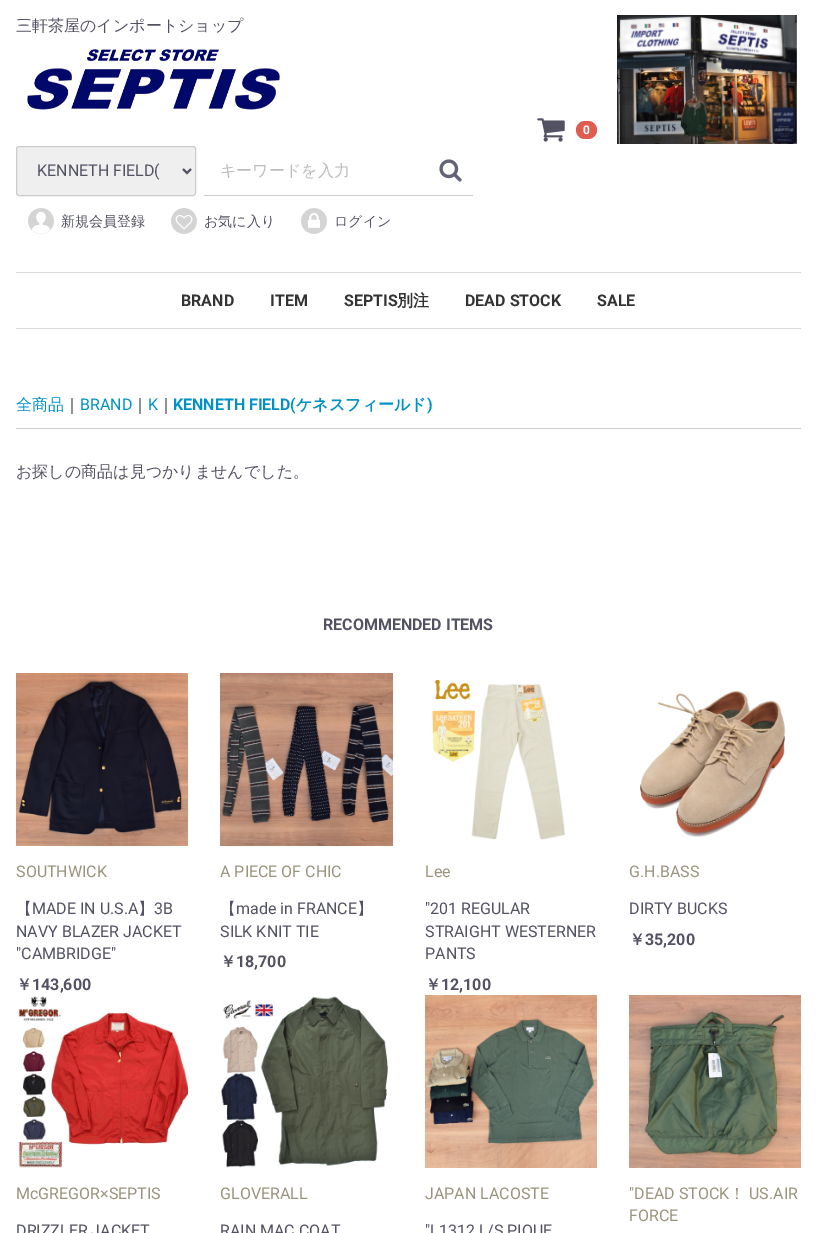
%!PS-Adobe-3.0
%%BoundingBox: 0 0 817 1233
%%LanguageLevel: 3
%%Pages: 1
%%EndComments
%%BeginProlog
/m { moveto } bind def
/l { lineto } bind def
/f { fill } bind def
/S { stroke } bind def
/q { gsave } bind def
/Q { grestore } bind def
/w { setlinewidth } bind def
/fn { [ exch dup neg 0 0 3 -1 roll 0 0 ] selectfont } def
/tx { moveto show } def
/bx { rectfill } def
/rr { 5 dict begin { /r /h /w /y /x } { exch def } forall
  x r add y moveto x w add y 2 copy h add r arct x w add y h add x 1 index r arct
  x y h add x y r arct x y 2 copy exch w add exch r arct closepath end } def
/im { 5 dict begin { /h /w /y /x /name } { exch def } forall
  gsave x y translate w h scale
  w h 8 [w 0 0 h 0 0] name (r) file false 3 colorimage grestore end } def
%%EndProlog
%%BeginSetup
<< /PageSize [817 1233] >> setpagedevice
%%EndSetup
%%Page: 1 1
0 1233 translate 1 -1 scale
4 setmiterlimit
1 setgray
0 0 817 1233 bx
/WenQuanYiZenHei-Medium 16 fn
0.322 0.322 0.388 setrgbcolor
(三軒茶屋のインポートショップ) 16 31 tx
(image0.raw) 27 49 253 61 im
(image1.raw) 617 15 180 129 im
(image2.raw) 537 118 28 24 im
0.871 0.365 0.314 setrgbcolor
576 121 21 18 9 rr f
/Roboto-Bold 12 fn
1 setgray
(0) 583 134 tx
0.937 setgray
16.5 146.5 179 49 2.5 rr q f Q
0.8 setgray
S
0.322 0.322 0.388 setrgbcolor
2 w
183 169 m 187 173 l 191 169 l S
/Roboto-Regular 16 fn
(KENNETH FIELD\() 37 176 tx
0.8 setgray
204 195 269 1 bx
/WenQuanYiZenHei-Medium 16 fn
0.733 setgray
(キーワードを入力) 220 176 tx
(image3.raw) 439 159 23 23 im
(image4.raw) 28 208 26 26 im
/WenQuanYiZenHei-Medium 14 fn
0.322 0.322 0.388 setrgbcolor
(新規会員登録) 61 226 tx
(image5.raw) 171 208 26 26 im
(お気に入り) 204 226 tx
(image6.raw) 301 208 26 26 im
(ログイン) 334 226 tx
0.851 setgray
16 272 785 1 bx
16 328 785 1 bx
/Roboto-Bold 16 fn
0.2 setgray
(BRAND) 181 306 tx
(ITEM) 270 306 tx
(SEPTIS) 344 306 tx
/WenQuanYiZenHei-Bold 16 fn
(別注) 397 306 tx
/Roboto-Bold 16 fn
(DEAD STOCK) 465 306 tx
(SALE) 597 306 tx
0.8 setgray
16 428 785 1 bx
/WenQuanYiZenHei-Medium 16 fn
0 0.573 0.769 setrgbcolor
(全商品) 16 410 tx
0.2 setgray
(｜) 64 410 tx
/Roboto-Regular 16 fn
0 0.573 0.769 setrgbcolor
(BRAND) 80 410 tx
/WenQuanYiZenHei-Medium 16 fn
0.2 setgray
(｜) 132 410 tx
/Roboto-Regular 16 fn
0 0.573 0.769 setrgbcolor
(K) 148 410 tx
/WenQuanYiZenHei-Medium 16 fn
0.2 setgray
(｜) 158 410 tx
/Roboto-Bold 16 fn
0 0.573 0.769 setrgbcolor
(KENNETH FIELD\() 173 410 tx
/WenQuanYiZenHei-Bold 16 fn
(ケネスフィールド) 296 410 tx
/Roboto-Bold 16 fn
(\)) 427 410 tx
/WenQuanYiZenHei-Medium 16 fn
0.322 0.322 0.388 setrgbcolor
(お探しの商品は見つかりませんでした。) 16 477 tx
/Roboto-Bold 16 fn
(RECOMMENDED ITEMS) 323 630 tx
(image7.raw) 16 673 172 173 im
/Roboto-Regular 16 fn
0.604 0.58 0.494 setrgbcolor
(SOUTHWICK) 16 877 tx
/WenQuanYiZenHei-Medium 16 fn
0.322 0.322 0.388 setrgbcolor
(【) 16 914 tx
/Roboto-Regular 16 fn
(MADE IN U.S.A) 32 914 tx
/WenQuanYiZenHei-Medium 16 fn
(】) 138 914 tx
/Roboto-Regular 16 fn
(3B) 154 914 tx
(NAVY BLAZER JACKET) 16 937 tx
("CAMBRIDGE") 16 959 tx
/WenQuanYiZenHei-Bold 16 fn
(￥) 16 990 tx
/Roboto-Bold 16 fn
(143,600) 32 990 tx
(image8.raw) 220 673 173 173 im
/Roboto-Regular 16 fn
0.604 0.58 0.494 setrgbcolor
(A PIECE OF CHIC) 220 877 tx
/WenQuanYiZenHei-Medium 16 fn
0.322 0.322 0.388 setrgbcolor
(【) 220 914 tx
/Roboto-Regular 16 fn
(made in FRANCE) 236 914 tx
/WenQuanYiZenHei-Medium 16 fn
(】) 357 914 tx
/Roboto-Regular 16 fn
(SILK KNIT TIE) 220 937 tx
/WenQuanYiZenHei-Bold 16 fn
(￥) 220 967 tx
/Roboto-Bold 16 fn
(18,700) 236 967 tx
(image9.raw) 432 679 134 161 im
/Roboto-Regular 16 fn
0.604 0.58 0.494 setrgbcolor
(Lee) 425 877 tx
0.322 0.322 0.388 setrgbcolor
("201 REGULAR) 425 914 tx
(STRAIGHT WESTERNER) 425 937 tx
(PANTS) 425 959 tx
/WenQuanYiZenHei-Bold 16 fn
(￥) 425 990 tx
/Roboto-Bold 16 fn
(12,100) 441 990 tx
(image10.raw) 640 691 146 146 im
/Roboto-Regular 16 fn
0.604 0.58 0.494 setrgbcolor
(G.H.BASS) 629 877 tx
0.322 0.322 0.388 setrgbcolor
(DIRTY BUCKS) 629 914 tx
/WenQuanYiZenHei-Bold 16 fn
(￥) 629 945 tx
/Roboto-Bold 16 fn
(35,200) 645 945 tx
(image11.raw) 18 996 170 172 im
/Roboto-Regular 16 fn
0.604 0.58 0.494 setrgbcolor
(McGREGOR×SEPTIS) 16 1199 tx
0.322 0.322 0.388 setrgbcolor
(DRIZZLER JACKET) 16 1236 tx
(image12.raw) 220 996 168 172 im
0.604 0.58 0.494 setrgbcolor
(GLOVERALL) 220 1199 tx
0.322 0.322 0.388 setrgbcolor
(RAIN MAC COAT) 220 1236 tx
(image13.raw) 425 995 172 173 im
0.604 0.58 0.494 setrgbcolor
(JAPAN LACOSTE) 425 1199 tx
0.322 0.322 0.388 setrgbcolor
("L1312 L/S PIQUE) 425 1236 tx
(image14.raw) 629 995 172 173 im
0.604 0.58 0.494 setrgbcolor
("DEAD STOCK) 629 1199 tx
/WenQuanYiZenHei-Medium 16 fn
(！) 729 1199 tx
/Roboto-Regular 16 fn
(US.AIR) 749 1199 tx
(FORCE) 629 1221 tx
showpage
%%EOF
